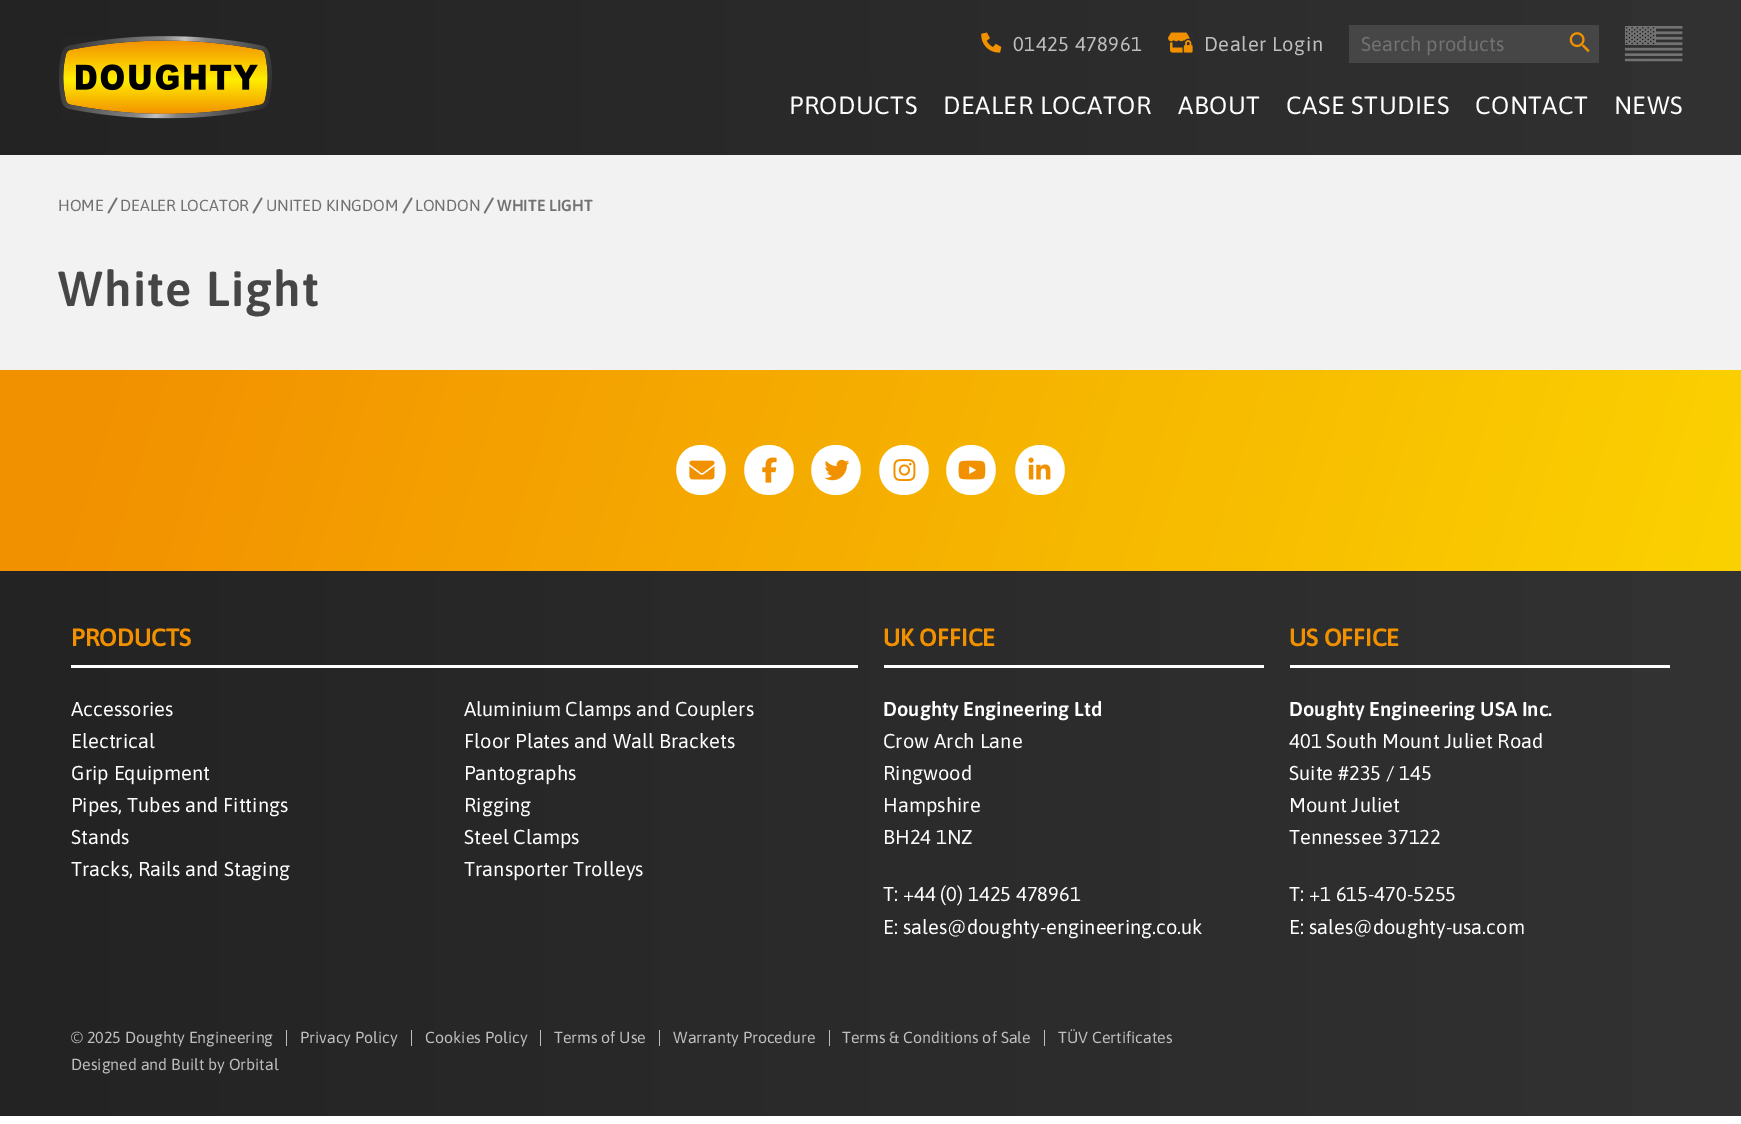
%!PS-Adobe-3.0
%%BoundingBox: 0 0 1741 1124
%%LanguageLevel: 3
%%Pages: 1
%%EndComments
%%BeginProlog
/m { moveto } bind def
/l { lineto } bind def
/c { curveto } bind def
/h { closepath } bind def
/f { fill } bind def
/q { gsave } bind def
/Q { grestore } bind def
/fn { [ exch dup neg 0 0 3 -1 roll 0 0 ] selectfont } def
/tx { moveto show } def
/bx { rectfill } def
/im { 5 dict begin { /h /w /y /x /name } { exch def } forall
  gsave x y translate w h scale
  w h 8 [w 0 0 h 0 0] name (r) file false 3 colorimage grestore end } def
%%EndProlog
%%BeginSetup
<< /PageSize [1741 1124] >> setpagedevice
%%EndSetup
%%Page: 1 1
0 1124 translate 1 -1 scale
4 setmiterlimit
1 setgray
0 0 1741 1124 bx
q 0 0 m 1741 0 l 1741 155 l 0 155 l h clip newpath
<< /ShadingType 2 /ColorSpace /DeviceRGB /Coords [0 78 1741 77] /Extend [true true] /Function << /FunctionType 3 /Domain [0 1] /Functions [<< /FunctionType 2 /Domain [0 1] /C0 [0.137 0.137 0.137] /C1 [0.192 0.192 0.192] /N 1 >> << /FunctionType 2 /Domain [0 1] /C0 [0.192 0.192 0.192] /C1 [0.192 0.192 0.192] /N 1 >>] /Bounds [0.98] /Encode [0 1 0 1] >> >> shfill Q
(image0.raw) 59 36 213 83 im
(image1.raw) 981 32 21 21 im
/Asap-Regular 20.1 fn
0.745 setgray
1013 51 m 0.5 0 (01425 478961) ashow
(image2.raw) 1168 32 25 21 im
1204 51 m 0.5 0 (Dealer Login) ashow
0.275 setgray
1349 25 250 38 bx
0.447 setgray
(Search products) 1361 51 tx
(image3.raw) 1569 32 21 21 im
(image4.raw) 1624 26 59 36 im
/Asap-Regular 25 fn
1 setgray
789 114 m 0.5 0 (PRODUCTS) ashow
943 114 m 0.5 0 (DEALER LOCATOR) ashow
1178 114 m 0.5 0 (ABOUT) ashow
1286 114 m 0.5 0 (CASE STUDIES) ashow
1475 114 m 0.5 0 (CONTACT) ashow
1614 114 m 0.5 0 (NEWS) ashow
0.949 setgray
0 155 1741 215 bx
/Asap-Regular 16 fn
0.447 setgray
(HOME) 58 211 tx
(image5.raw) 107 197 11 17 im
(DEALER LOCATOR) 120 211 tx
(image5.raw) 252 197 11 17 im
(UNITED KINGDOM) 266 211 tx
(image5.raw) 402 197 11 17 im
(LONDON) 415 211 tx
(image6.raw) 483 197 11 17 im
/Asap-SemiBold 16 fn
(WHITE LIGHT) 497 211 tx
/Asap-SemiBold 49 fn
0.275 setgray
58 306 m 1.25 0 (White Light) ashow
q 0 370 m 1741 370 l 1741 571 l 0 571 l h clip newpath
<< /ShadingType 2 /ColorSpace /DeviceRGB /Coords [48 216 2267 903] /Extend [true true] /Function << /FunctionType 3 /Domain [0 1] /Functions [<< /FunctionType 2 /Domain [0 1] /C0 [0.949 0.569 0] /C1 [0.949 0.569 0] /N 1 >> << /FunctionType 2 /Domain [0 1] /C0 [0.949 0.569 0] /C1 [0.996 0.918 0] /N 1 >>] /Bounds [0.05] /Encode [0 1 0 1] >> >> shfill Q
1 setgray
701 495 m 734 495 734 445 701 445 c 668 445 668 495 701 495 c h f
(image7.raw) 689 460 26 20 im
769 495 m 802 495 802 445 769 445 c 736 445 736 495 769 495 c h f
(image8.raw) 762 457 15 26 im
836 495 m 869 495 869 445 836 445 c 803 445 803 495 836 495 c h f
(image9.raw) 824 459 26 22 im
904 495 m 937 495 937 445 904 445 c 871 445 871 495 904 495 c h f
(image10.raw) 893 459 23 22 im
971 495 m 1004 495 1004 445 971 445 c 938 445 938 495 971 495 c h f
(image11.raw) 958 460 28 20 im
1040 495 m 1073 495 1073 445 1040 445 c 1007 445 1007 495 1040 495 c h f
(image12.raw) 1028 457 23 23 im
q 0 571 m 1741 571 l 1741 1116 l 0 1116 l h clip newpath
<< /ShadingType 2 /ColorSpace /DeviceRGB /Coords [0 844 1741 844] /Extend [true true] /Function << /FunctionType 3 /Domain [0 1] /Functions [<< /FunctionType 2 /Domain [0 1] /C0 [0.137 0.137 0.137] /C1 [0.196 0.196 0.196] /N 1 >> << /FunctionType 2 /Domain [0 1] /C0 [0.196 0.196 0.196] /C1 [0.196 0.196 0.196] /N 1 >>] /Bounds [0.98] /Encode [0 1 0 1] >> >> shfill Q
71 665 787 3 bx
/Asap-SemiBold 25 fn
0.949 0.569 0 setrgbcolor
71 646 m -0.6 0 (PRODUCTS) ashow
/Asap-Regular 20.1 fn
1 setgray
(Accessories) 71 716 tx
(Aluminium Clamps and Couplers) 464 716 tx
(Electrical) 71 748 tx
(Floor Plates and Wall Brackets) 464 748 tx
(Grip Equipment) 71 780 tx
(Pantographs) 464 780 tx
(Pipes, Tubes and Fittings) 71 812 tx
(Rigging) 464 812 tx
(Stands) 71 844 tx
(Steel Clamps) 464 844 tx
(Tracks, Rails and Staging) 71 876 tx
(Transporter Trolleys) 464 876 tx
884 665 380 3 bx
/Asap-SemiBold 25 fn
0.949 0.569 0 setrgbcolor
883 646 m -0.6 0 (UK OFFICE) ashow
/Asap-SemiBold 20.1 fn
1 setgray
(Doughty Engineering Ltd) 883 716 tx
/Asap-Regular 20.1 fn
(Crow Arch Lane) 883 748 tx
(Ringwood) 883 780 tx
(Hampshire) 883 812 tx
(BH24 1NZ) 883 844 tx
(T: +44 \(0\) 1425 478961) 883 901 tx
(E: sales@doughty-engineering.co.uk) 883 934 tx
1290 665 380 3 bx
/Asap-SemiBold 25 fn
0.949 0.569 0 setrgbcolor
1289 646 m -0.6 0 (US OFFICE) ashow
/Asap-SemiBold 20.1 fn
1 setgray
(Doughty Engineering USA Inc.) 1289 716 tx
/Asap-Regular 20.1 fn
(401 South Mount Juliet Road) 1289 748 tx
(Suite #235 / 145) 1289 780 tx
(Mount Juliet) 1289 812 tx
(Tennessee 37122) 1289 844 tx
(T: +1 615-470-5255) 1289 901 tx
(E: sales@doughty-usa.com) 1289 934 tx
/Asap-Regular 16 fn
0.745 setgray
(© 2025 Doughty Engineering) 71 1043 tx
286 1030 1 16 bx
(Privacy Policy) 300 1043 tx
411 1030 1 16 bx
(Cookies Policy) 425 1043 tx
540 1030 1 16 bx
(Terms of Use) 554 1043 tx
659 1030 1 16 bx
(Warranty Procedure) 673 1043 tx
829 1030 1 16 bx
(Terms & Conditions of Sale) 842 1043 tx
1044 1030 1 16 bx
(TÜV Certificates) 1058 1043 tx
(Designed and Built by Orbital) 71 1070 tx
showpage
%%EOF
